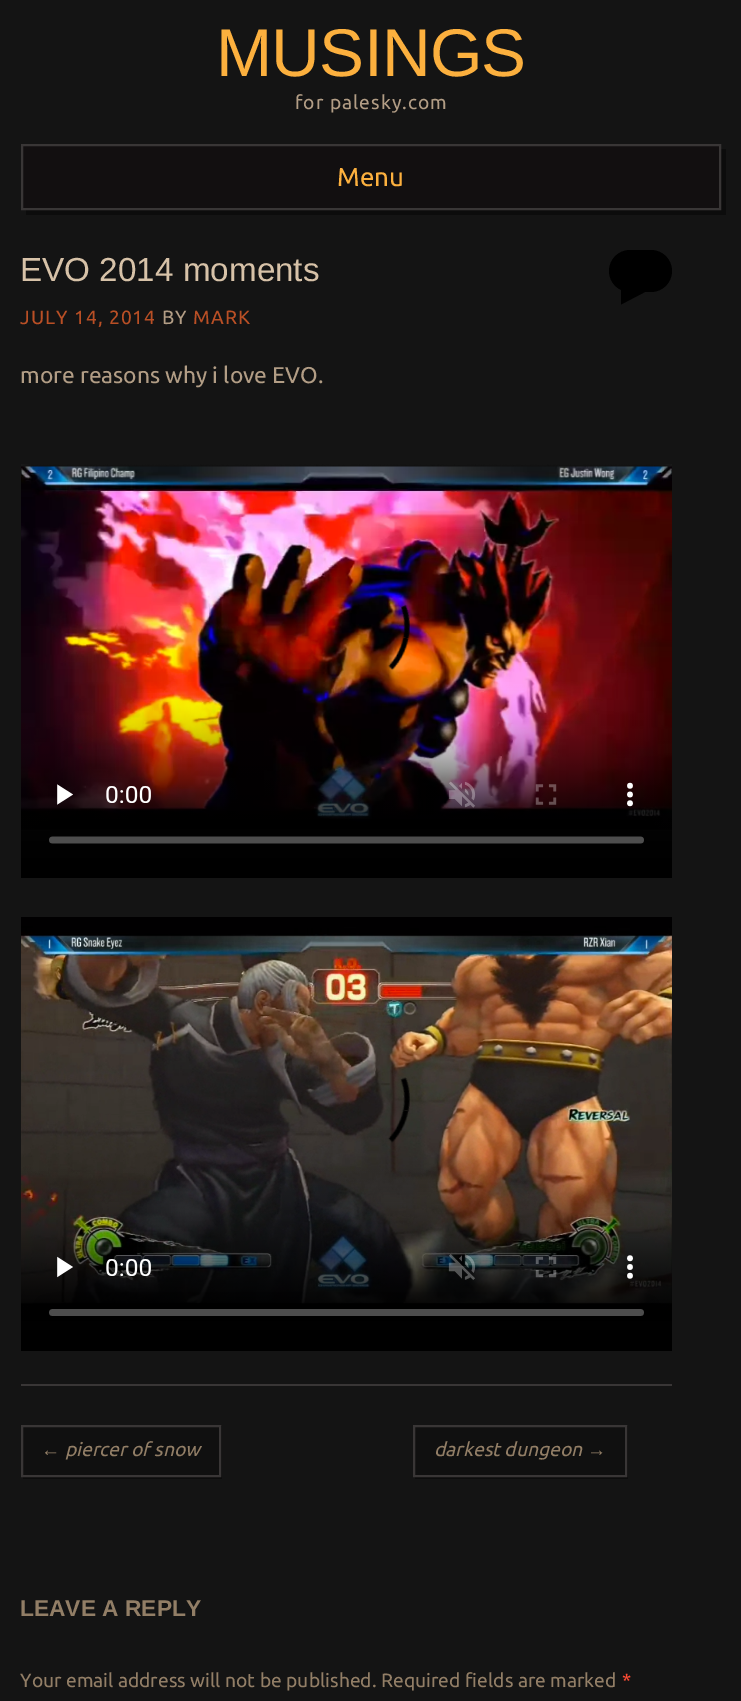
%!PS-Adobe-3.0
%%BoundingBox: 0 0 741 1701
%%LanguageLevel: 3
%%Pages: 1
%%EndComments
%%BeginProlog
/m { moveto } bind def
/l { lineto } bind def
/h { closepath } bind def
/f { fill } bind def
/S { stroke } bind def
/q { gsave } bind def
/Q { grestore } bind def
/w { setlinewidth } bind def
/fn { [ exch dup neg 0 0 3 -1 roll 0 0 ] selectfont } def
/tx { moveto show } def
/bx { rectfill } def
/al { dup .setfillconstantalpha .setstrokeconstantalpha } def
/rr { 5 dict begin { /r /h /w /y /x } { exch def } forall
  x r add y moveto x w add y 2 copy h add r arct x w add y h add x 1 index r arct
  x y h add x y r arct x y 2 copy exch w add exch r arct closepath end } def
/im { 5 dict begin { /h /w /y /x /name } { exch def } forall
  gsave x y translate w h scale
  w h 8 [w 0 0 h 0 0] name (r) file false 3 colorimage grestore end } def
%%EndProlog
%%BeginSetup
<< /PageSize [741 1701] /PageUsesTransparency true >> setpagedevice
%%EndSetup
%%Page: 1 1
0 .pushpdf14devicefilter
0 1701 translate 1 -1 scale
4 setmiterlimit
0.078 setgray
0 0 741 1701 bx
/LiberationSans-Regular 67.5 fn
0.988 0.69 0.243 setrgbcolor
216 76 m -0.75 0 (MUSINGS) ashow
/Ubuntu-Regular 19.25 fn
0.698 0.616 0.522 setrgbcolor
295 109 m 1 0 (for palesky.com) ashow
0.047 setgray
26 210 m 26 215 l 726 215 l 726 149 l 721 149 l 721 210 l h f
0.071 0.059 0.063 setrgbcolor
22 145 m 720 145 l 720 209 l 22 209 l h q f Q
0.224 0.212 0.212 setrgbcolor
2 w
S
/Ubuntu-Regular 26 fn
0.988 0.69 0.243 setrgbcolor
(Menu) 337 186 tx
0.224 0.212 0.212 setrgbcolor
21 1384 651 2 bx
/LiberationSans-Regular 33.25 fn
0.843 0.761 0.659 setrgbcolor
(EVO 2014 moments) 20 281 tx
0 setgray
609 250 63 42 21 rr f
621 304.5 m 621 287 l 654.5 287 l h f
/Ubuntu-Regular 19.25 fn
0.725 0.31 0.145 setrgbcolor
20 324 m 1 0 (JULY 14, 2014) ashow
0.698 0.616 0.522 setrgbcolor
162 324 m 1 0 (BY) ashow
0.725 0.31 0.145 setrgbcolor
193 324 m 1 0 (MARK) ashow
/Ubuntu-Regular 22.75 fn
0.698 0.616 0.522 setrgbcolor
(more reasons why i love EVO.) 20 383 tx
(image0.raw) 21 464 651 414 im
(image1.raw) 21 917 651 434 im
0.047 setgray
23 1477 m 23 1479 l 222 1479 l 222 1426 l 220 1426 l 220 1477 l h f
0.2 al
0 setgray
22 1426 m 220 1426 l 220 1476 l 22 1476 l h f
1 al
0.224 0.212 0.212 setrgbcolor
22 1426 m 220 1426 l 220 1476 l 22 1476 l h S
/LiberationSans-Italic 19.25 fn
0.573 0.494 0.4 setrgbcolor
(←) 41 1456 tx
/Ubuntu-Italic 19.25 fn
(piercer of snow) 65 1456 tx
0.047 setgray
415 1477 m 415 1479 l 628 1479 l 628 1426 l 626 1426 l 626 1477 l h f
0.2 al
0 setgray
414 1426 m 626 1426 l 626 1476 l 414 1476 l h f
1 al
0.224 0.212 0.212 setrgbcolor
414 1426 m 626 1426 l 626 1476 l 414 1476 l h S
0.573 0.494 0.4 setrgbcolor
(darkest dungeon) 434 1456 tx
/LiberationSans-Italic 19.25 fn
(→) 587 1456 tx
/LiberationSans-Bold 22.75 fn
(LEAVE A REPLY) 20 1616 tx
/Ubuntu-Regular 19.25 fn
(Your email address will not be published. Required fields are marked) 20 1687 tx
1 0.294 0.2 setrgbcolor
(*) 622 1687 tx
.poppdf14devicefilter showpage
%%EOF
